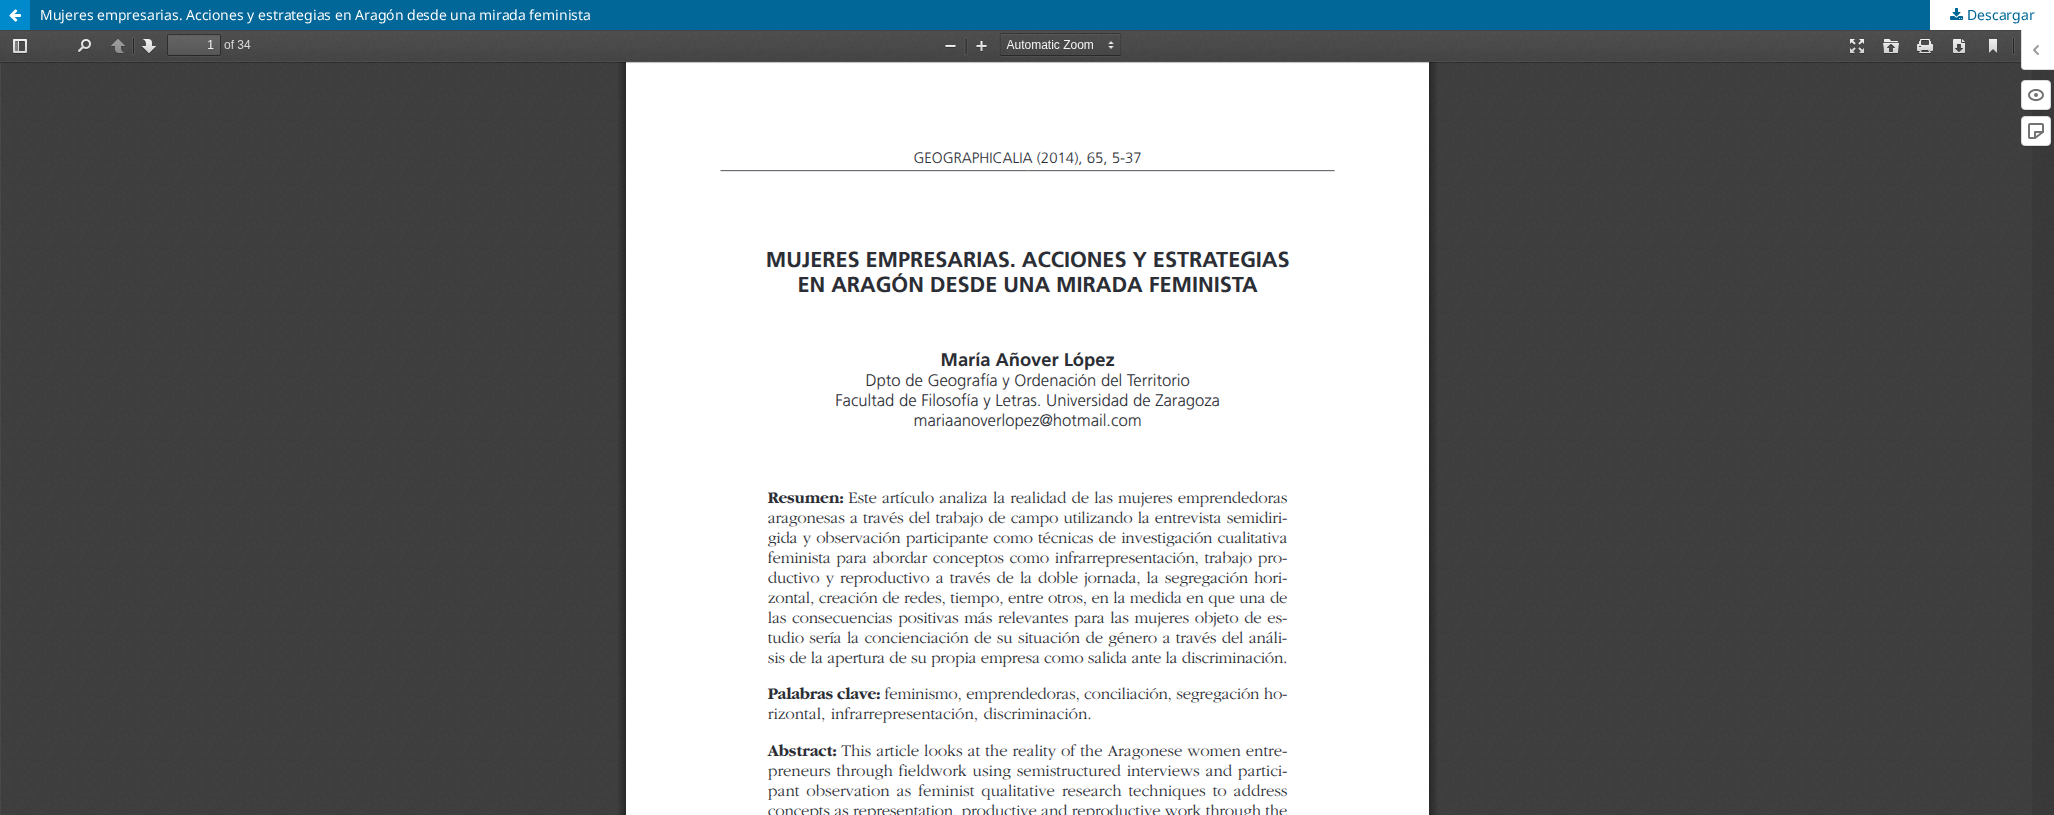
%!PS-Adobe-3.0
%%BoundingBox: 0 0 2054 815
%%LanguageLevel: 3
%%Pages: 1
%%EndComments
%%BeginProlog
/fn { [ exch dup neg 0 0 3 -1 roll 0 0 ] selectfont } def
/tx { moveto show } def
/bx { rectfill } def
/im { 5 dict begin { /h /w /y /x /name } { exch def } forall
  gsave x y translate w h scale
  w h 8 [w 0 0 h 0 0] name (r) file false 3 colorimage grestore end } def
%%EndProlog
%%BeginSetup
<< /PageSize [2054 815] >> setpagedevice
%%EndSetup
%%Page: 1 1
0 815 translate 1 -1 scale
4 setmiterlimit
1 setgray
0 0 2054 815 bx
0 0.404 0.596 setrgbcolor
30 0 1900 30 bx
0 0.541 0.796 setrgbcolor
0 0 30 30 bx
(image0.raw) 9 9 12 13 im
/NotoSans-Regular 14 fn
1 setgray
(Mujeres empresarias. Acciones y estrategias en Aragón desde una mirada feminista) 40 20 tx
(image1.raw) 1950 8 13 12 im
0 0.404 0.596 setrgbcolor
(Descargar) 1967 20 tx
(image2.raw) 0 30 2054 785 im
showpage
%%EOF
